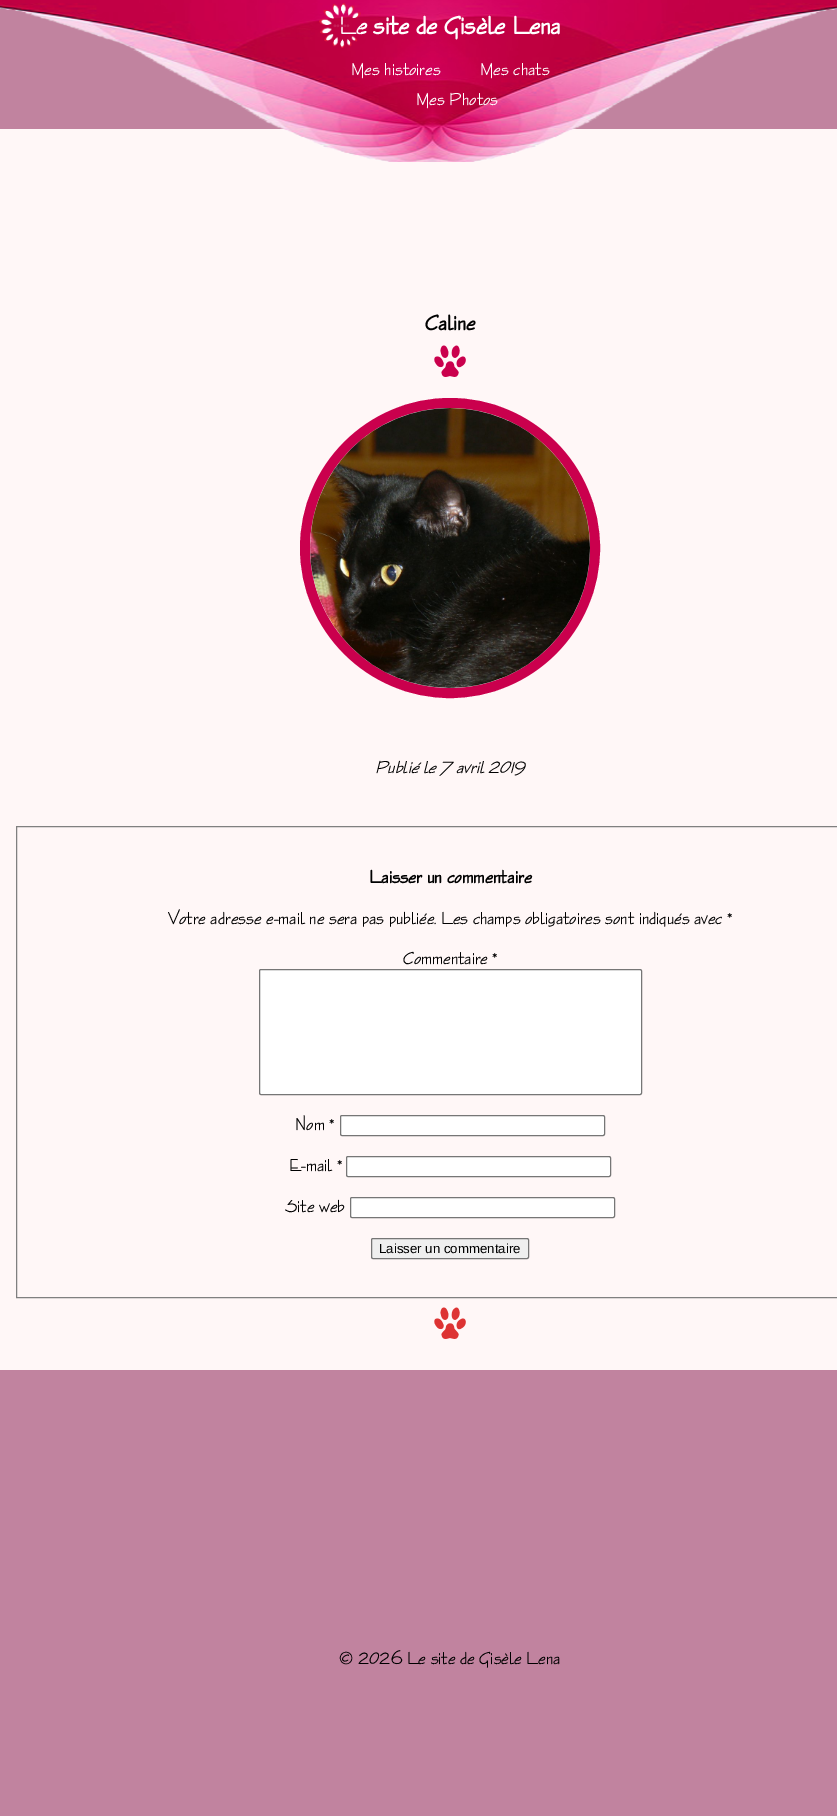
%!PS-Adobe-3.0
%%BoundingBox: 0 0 837 1816
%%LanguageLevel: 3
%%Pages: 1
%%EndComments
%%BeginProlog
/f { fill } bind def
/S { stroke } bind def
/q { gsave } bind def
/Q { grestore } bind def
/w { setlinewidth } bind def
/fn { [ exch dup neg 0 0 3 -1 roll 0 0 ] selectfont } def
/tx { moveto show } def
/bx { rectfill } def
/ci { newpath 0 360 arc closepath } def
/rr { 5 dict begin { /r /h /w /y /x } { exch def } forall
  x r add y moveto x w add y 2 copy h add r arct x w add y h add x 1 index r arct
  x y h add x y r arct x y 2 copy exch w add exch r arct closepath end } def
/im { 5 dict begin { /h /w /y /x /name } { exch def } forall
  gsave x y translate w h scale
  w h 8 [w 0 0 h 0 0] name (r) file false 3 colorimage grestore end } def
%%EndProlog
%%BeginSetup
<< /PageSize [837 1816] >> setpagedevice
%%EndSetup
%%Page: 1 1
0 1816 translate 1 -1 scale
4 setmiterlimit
0.757 0.514 0.624 setrgbcolor
0 0 837 1816 bx
1 0.969 0.969 setrgbcolor
0 129 837 1241 bx
(image0.raw) 0 0 837 162 im
/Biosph-Bold 26 fn
1 setgray
(Le site de Gisèle Lena) 339 34 tx
(image1.raw) 319 3 42 45 im
0.78 0.114 0.341 setrgbcolor
(.....) 333 27 tx
/Biosph-Regular 18 fn
1 setgray
(Mes histoires) 351 75 tx
(Mes chats) 480 75 tx
(Mes Photos) 416 105 tx
/Biosph-Bold 22 fn
0 setgray
(Caline) 425 330 tx
(image2.raw) 434 345 32 32 im
0.792 0 0.302 setrgbcolor
10 w
450 548 145 ci S
(image3.raw) 310 408 280 280 im
/Biosph-Italic 18 fn
0 setgray
(Publié le 7 avril 2019) 375 773 tx
0.502 setgray
1 w
16.5 826.5 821 471 rectstroke
/Biosph-Bold 18.75 fn
0 setgray
(Laisser un commentaire) 369 883 tx
/Biosph-Regular 18 fn
(Votre adresse e-mail ne sera pas publiée. Les champs obligatoires sont indiqués avec *) 168 924 tx
(Commentaire *) 403 964 tx
1 setgray
259.5 969.5 382 125 1.5 rr q f Q
0.463 setgray
S
0 setgray
(Nom *) 295 1130 tx
1 setgray
340.5 1115.5 264 20 1.5 rr q f Q
0.463 setgray
S
0 setgray
(E-mail *) 289 1171 tx
1 setgray
346.5 1156.5 264 20 1.5 rr q f Q
0.463 setgray
S
0 setgray
(Site web) 285 1212 tx
1 setgray
350.5 1197.5 264 20 1.5 rr q f Q
0.463 setgray
S
0.937 setgray
371.5 1238.5 157 20 1.5 rr q f Q
0.463 setgray
S
/LiberationSans-Regular 13.25 fn
0 setgray
(Laisser un commentaire) 379 1253 tx
(image4.raw) 434 1307 32 32 im
/Biosph-Regular 18 fn
(© 2026 Le site de Gisèle Lena) 339 1664 tx
showpage
%%EOF
